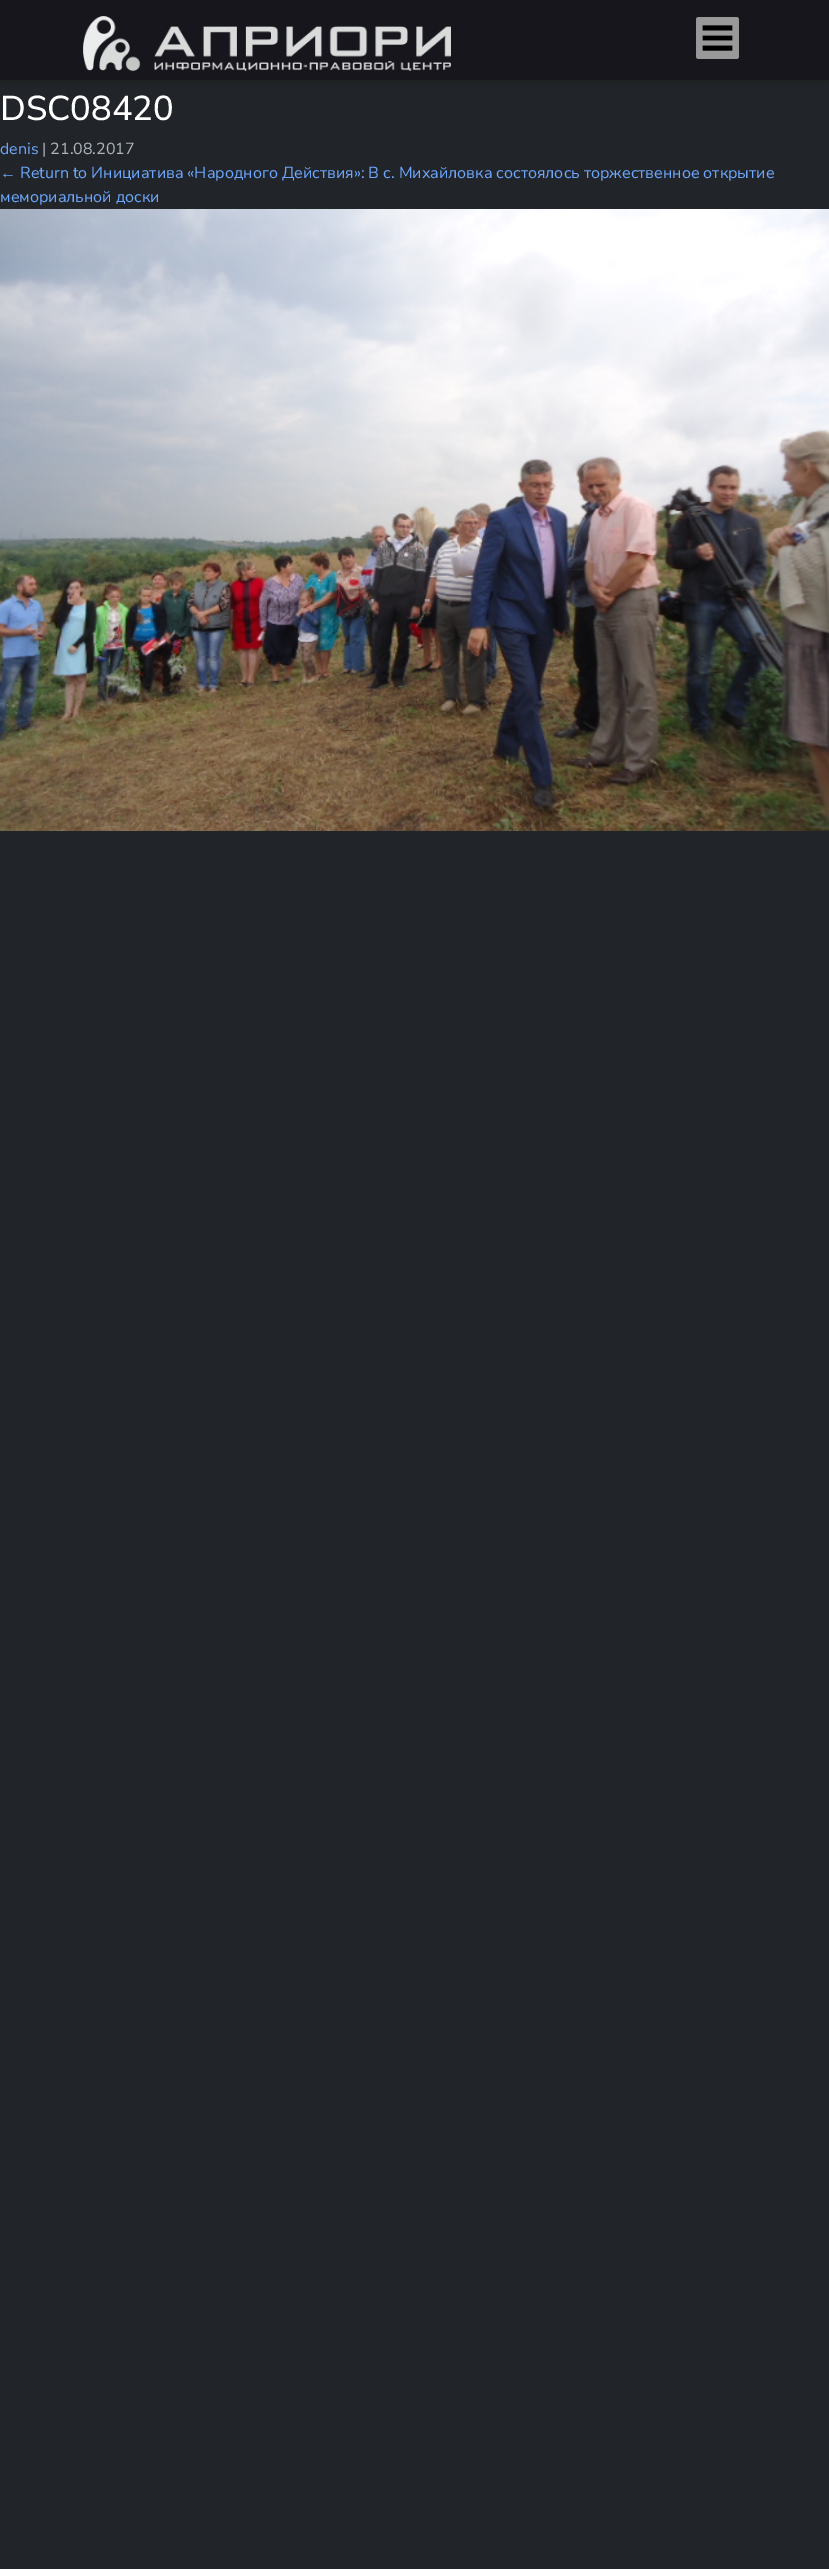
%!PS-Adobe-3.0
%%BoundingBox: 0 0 829 2569
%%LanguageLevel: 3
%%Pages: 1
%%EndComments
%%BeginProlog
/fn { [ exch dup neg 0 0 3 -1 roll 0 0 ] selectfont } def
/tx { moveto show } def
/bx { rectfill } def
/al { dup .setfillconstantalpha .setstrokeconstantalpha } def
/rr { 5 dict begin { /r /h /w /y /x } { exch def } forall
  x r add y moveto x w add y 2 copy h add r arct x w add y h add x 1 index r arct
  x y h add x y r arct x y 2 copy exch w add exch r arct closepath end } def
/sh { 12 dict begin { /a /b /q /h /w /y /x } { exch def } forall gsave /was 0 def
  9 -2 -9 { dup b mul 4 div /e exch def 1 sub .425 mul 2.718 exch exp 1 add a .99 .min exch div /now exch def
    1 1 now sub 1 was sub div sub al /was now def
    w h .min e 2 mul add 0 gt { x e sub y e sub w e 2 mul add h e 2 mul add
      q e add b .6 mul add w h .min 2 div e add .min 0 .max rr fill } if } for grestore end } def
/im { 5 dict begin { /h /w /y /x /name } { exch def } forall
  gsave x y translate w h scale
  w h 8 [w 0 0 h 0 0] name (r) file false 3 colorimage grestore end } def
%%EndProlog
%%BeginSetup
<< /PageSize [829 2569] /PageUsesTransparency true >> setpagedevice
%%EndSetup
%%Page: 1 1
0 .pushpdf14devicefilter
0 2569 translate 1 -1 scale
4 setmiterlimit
0.129 0.145 0.161 setrgbcolor
0 0 829 2569 bx
0.114 setgray
0 0 829 80 0 7.5 1 sh
0.09 0.086 0.114 setrgbcolor
0 0 829 80 bx
(image0.raw) 83 16 368 55 im
(image1.raw) 696 17 43 42 im
/NunitoSans-Medium 34.5 fn
1 setgray
(DSC08420) 0 120 tx
/NunitoSans-Regular 16 fn
0.431 0.659 0.996 setrgbcolor
(denis) 0 154 tx
0.678 0.71 0.741 setrgbcolor
(| 21.08.2017) 42 154 tx
/LiberationSans-Regular 16 fn
0.431 0.659 0.996 setrgbcolor
(←) 0 178 tx
/NunitoSans-Regular 16 fn
(Return to Инициатива «Народного Действия»: В с. Михайловка состоялось торжественное открытие) 20 178 tx
(мемориальной доски) 0 202 tx
(image2.raw) 0 209 829 622 im
.poppdf14devicefilter showpage
%%EOF
